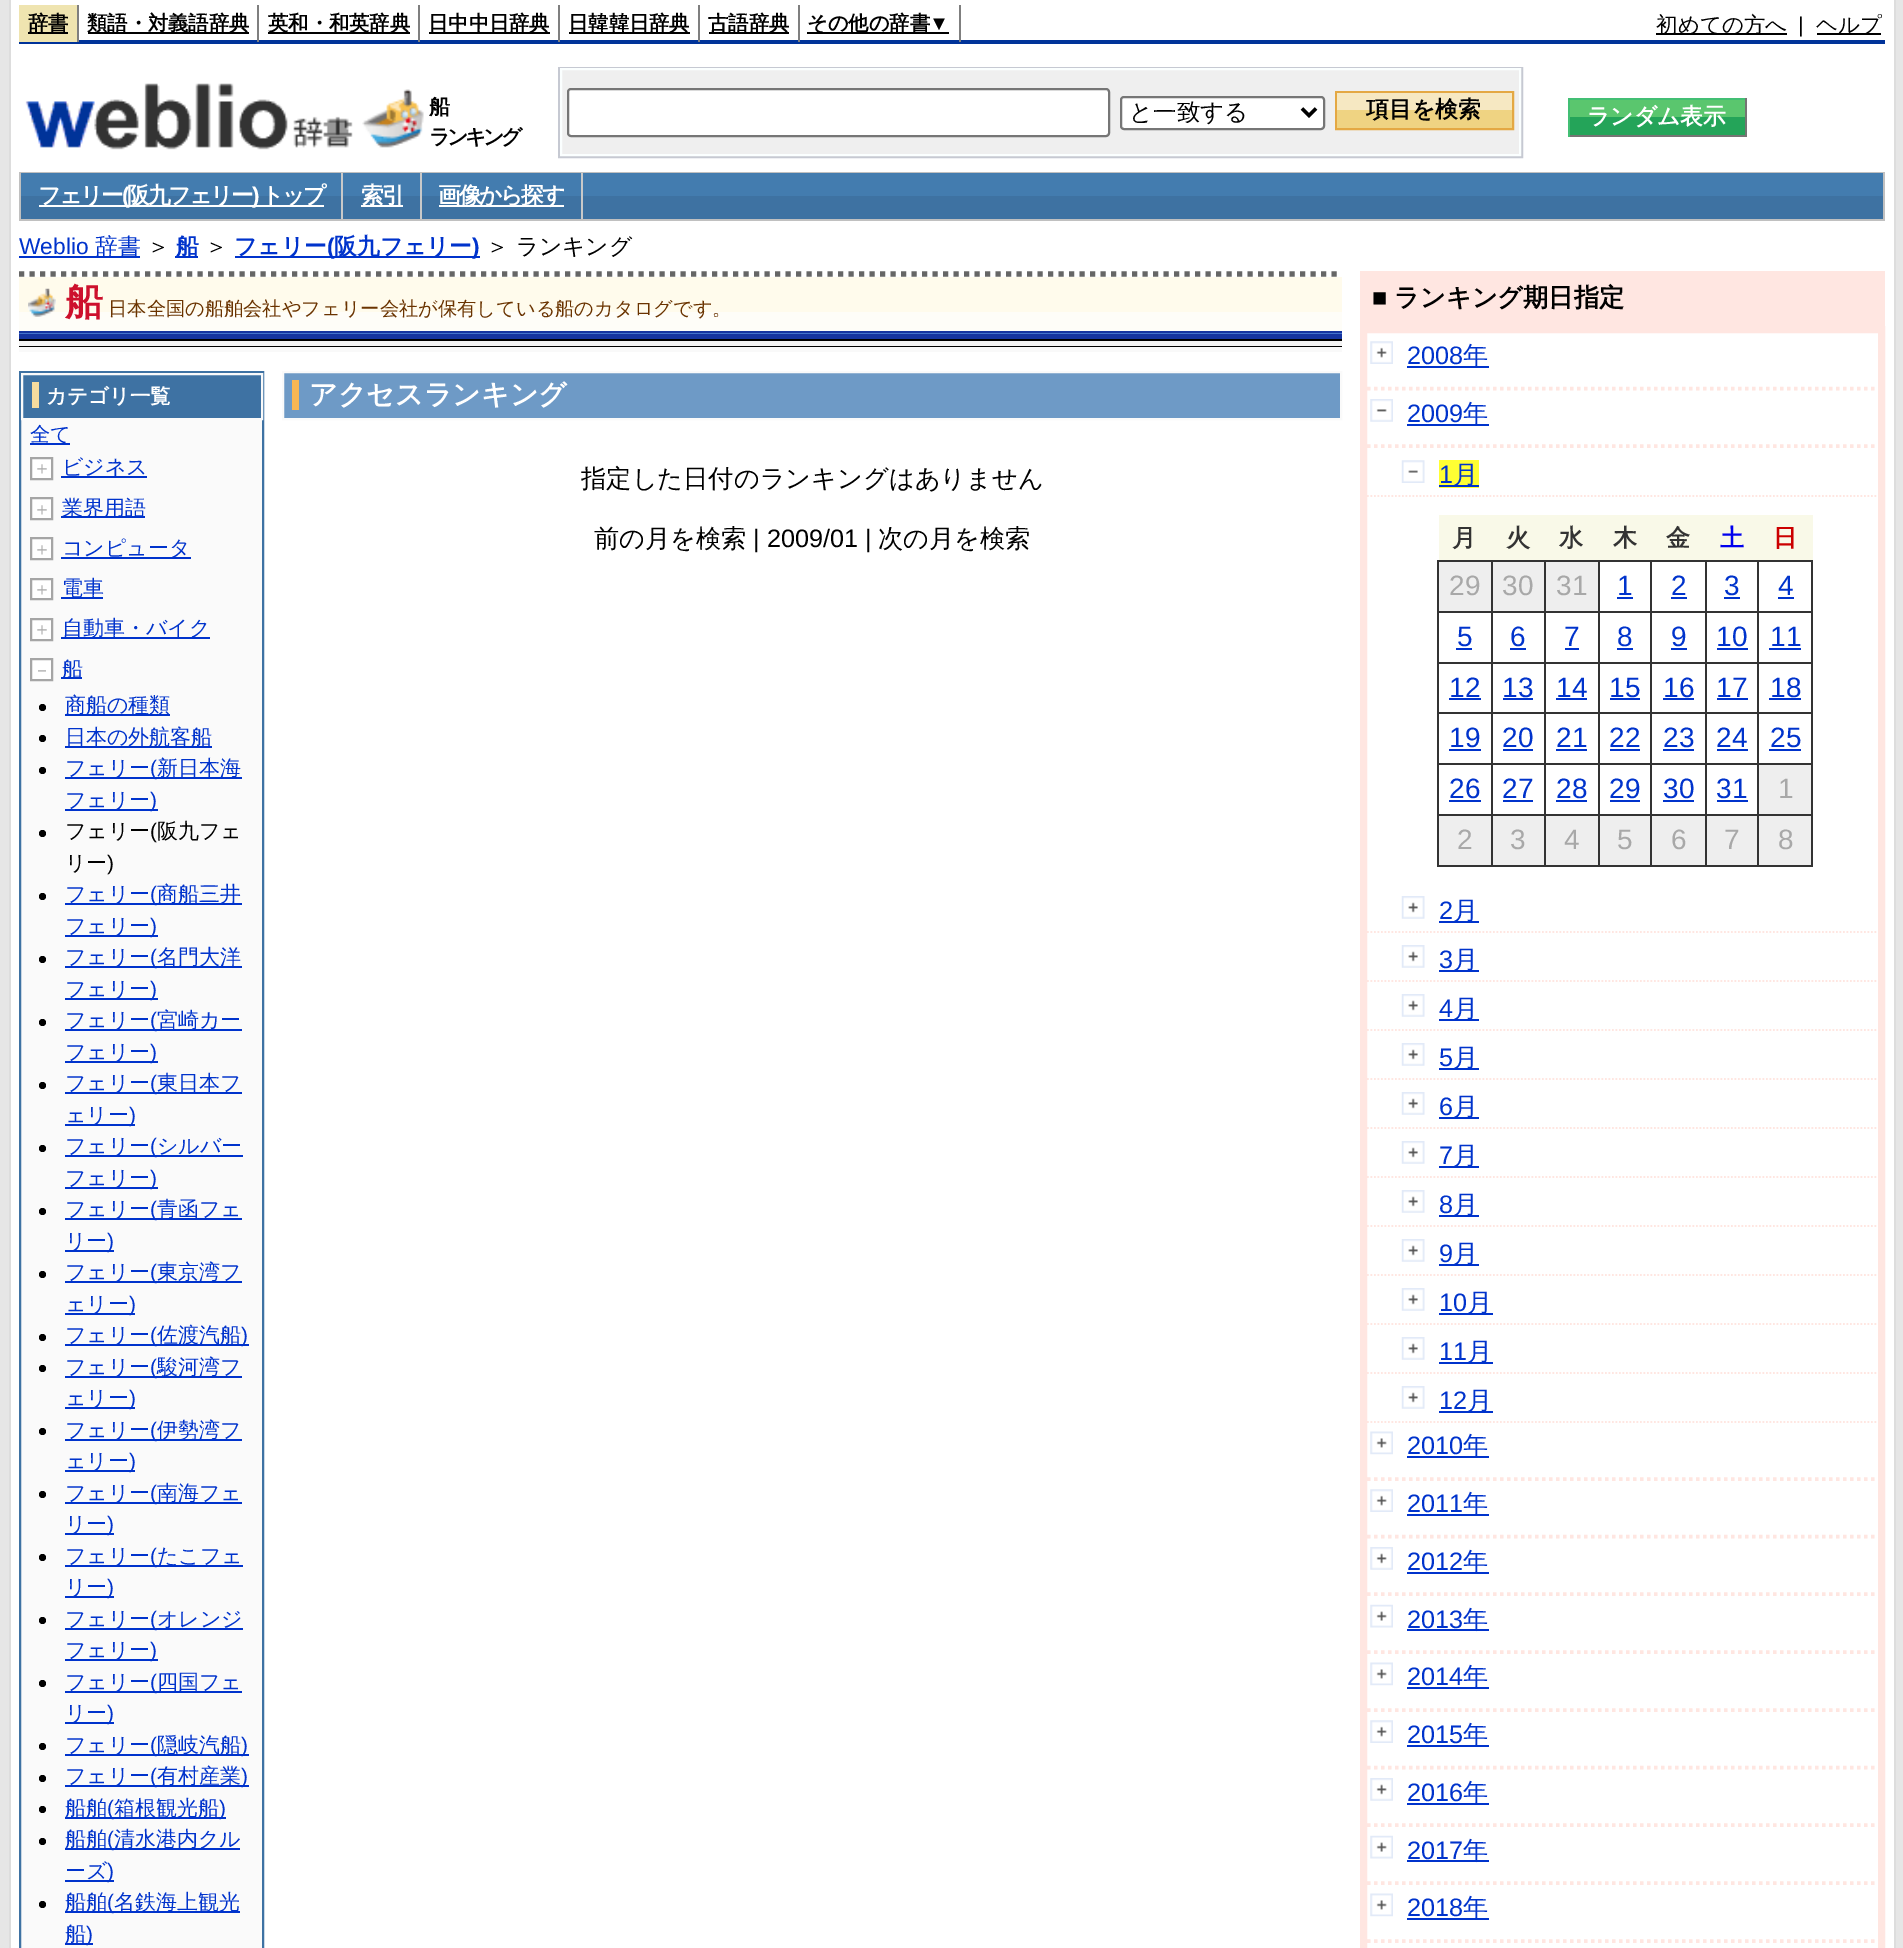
%!PS-Adobe-3.0
%%BoundingBox: 0 0 1903 1948
%%LanguageLevel: 3
%%Pages: 1
%%EndComments
%%BeginProlog
/m { moveto } bind def
/l { lineto } bind def
/h { closepath } bind def
/f { fill } bind def
/S { stroke } bind def
/q { gsave } bind def
/Q { grestore } bind def
/w { setlinewidth } bind def
/fn { [ exch dup neg 0 0 3 -1 roll 0 0 ] selectfont } def
/tx { moveto show } def
/bx { rectfill } def
/ci { newpath 0 360 arc closepath } def
/rr { 5 dict begin { /r /h /w /y /x } { exch def } forall
  x r add y moveto x w add y 2 copy h add r arct x w add y h add x 1 index r arct
  x y h add x y r arct x y 2 copy exch w add exch r arct closepath end } def
/im { 5 dict begin { /h /w /y /x /name } { exch def } forall
  gsave x y translate w h scale
  w h 8 [w 0 0 h 0 0] name (r) file false 3 colorimage grestore end } def
%%EndProlog
%%BeginSetup
<< /PageSize [1903 1948] >> setpagedevice
%%EndSetup
%%Page: 1 1
0 1948 translate 1 -1 scale
4 setmiterlimit
0.902 setgray
0 0 1903 1948 bx
1 setgray
11 0 1883 1948 bx
0.867 setgray
1894 0 2 1948 bx
9 0 2 1948 bx
0.753 setgray
19 172 1866 1 bx
0 0.2 0.6 setrgbcolor
19 40 1866 4 bx
0.937 0.894 0.69 setrgbcolor
19 5 58 37 bx
0.498 setgray
77 5 2 37 bx
0 setgray
28 32 40 2 bx
/WenQuanYiZenHei-Bold 20.25 fn
(辞書) 28 30 tx
0.498 setgray
257 5 2 37 bx
0 setgray
88 32 161 2 bx
(類語・対義語辞典) 87 30 tx
0.498 setgray
418 5 2 37 bx
0 setgray
268 32 142 2 bx
(英和・和英辞典) 268 30 tx
0.498 setgray
558 5 2 37 bx
0 setgray
429 32 121 2 bx
(日中中日辞典) 428 30 tx
0.498 setgray
698 5 2 37 bx
0 setgray
569 32 121 2 bx
(日韓韓日辞典) 568 30 tx
0.498 setgray
798 5 2 37 bx
0 setgray
709 32 80 2 bx
(古語辞典) 708 30 tx
0.498 setgray
959 5 2 37 bx
0 setgray
807 32 142 2 bx
(その他の辞書) 807 30 tx
/LiberationSans-Bold 20.25 fn
(▼) 929 30 tx
1656 33 131 2 bx
/WenQuanYiZenHei-Medium 21.5 fn
(初めての方へ) 1656 32 tx
/LiberationSans-Regular 21.5 fn
(|) 1798 32 tx
1817 33 64 2 bx
/WenQuanYiZenHei-Medium 21.5 fn
(ヘルプ) 1816 32 tx
(image0.raw) 25 83 328 67 im
(image1.raw) 362 89 62 59 im
/WenQuanYiZenHei-Bold 21 fn
429 114 m -3.5 0 (船) ashow
429 144 m -3.5 0 (ランキング) ashow
0.776 0.788 0.824 setrgbcolor
2 w
559 68 963 89 rectstroke
0.937 setgray
561 69 m 1520 69 l 1520 155 l 561 155 l h q f Q
0.984 1 1 setrgbcolor
S
1 setgray
568 89 541 47 3 rr q f Q
0.463 setgray
S
1 setgray
1121 97 203 32 3 rr q f Q
0.463 setgray
S
0 setgray
3.5 w
1302 108.5 m 1309 115.5 l 1316 108.5 l S
/WenQuanYiZenHei-Medium 23.5 fn
(と一致する) 1129 120 tx
0.894 0.659 0.263 setrgbcolor
2 w
1336 92 177 37 rectstroke
0.965 0.91 0.761 setrgbcolor
1337 93 175 17 bx
0.937 0.827 0.51 setrgbcolor
1337 110 175 18 bx
/WenQuanYiZenHei-Bold 22.75 fn
0 setgray
(項目を検索) 1366 117 tx
0.263 0.749 0.455 setrgbcolor
1568 98 179 2 bx
0.463 0.455 0.451 setrgbcolor
1745 98 2 39 bx
1568 135 179 2 bx
0.263 0.749 0.455 setrgbcolor
1568 98 2 39 bx
0.353 0.776 0.431 setrgbcolor
1570 100 175 17 bx
0.141 0.643 0.349 setrgbcolor
1570 117 175 18 bx
1 setgray
(ランダム表示) 1587 124 tx
0.263 0.486 0.686 setrgbcolor
21 173 1862 23 bx
0.753 setgray
1883 173 2 48 bx
19 219 1866 2 bx
19 173 2 48 bx
0.243 0.447 0.635 setrgbcolor
21 196 1862 23 bx
0.788 setgray
341 173 2 46 bx
1 setgray
39 205 285 2 bx
38 203 m -2.25 0 (フェリー) ashow
/LiberationSans-Bold 22.75 fn
122 203 m -2.25 0 (\() ashow
/WenQuanYiZenHei-Bold 22.75 fn
127 203 m -2.25 0 (阪九フェリー) ashow
/LiberationSans-Bold 22.75 fn
252 203 m -2.25 0 (\)) ashow
/WenQuanYiZenHei-Bold 22.75 fn
261 203 m -2.25 0 (トップ) ashow
0.788 setgray
420 173 2 46 bx
1 setgray
361 205 42 2 bx
361 203 m -2.25 0 (索引) ashow
0.788 setgray
581 173 2 46 bx
1 setgray
439 205 125 2 bx
438 203 m -2.25 0 (画像から探す) ashow
/LiberationSans-Regular 22.75 fn
0 0.2 0.8 setrgbcolor
(Weblio) 19 254 tx
19 256 121 2 bx
/WenQuanYiZenHei-Medium 22.75 fn
(辞書) 95 254 tx
0 setgray
(＞) 147 254 tx
0 0.2 0.8 setrgbcolor
175 256 23 2 bx
/WenQuanYiZenHei-Bold 22.75 fn
(船) 176 254 tx
/WenQuanYiZenHei-Medium 22.75 fn
0 setgray
(＞) 205 254 tx
0 0.2 0.8 setrgbcolor
235 256 245 2 bx
/WenQuanYiZenHei-Bold 22.75 fn
(フェリー) 234 254 tx
/LiberationSans-Bold 22.75 fn
(\() 327 254 tx
/WenQuanYiZenHei-Bold 22.75 fn
(阪九フェリー) 334 254 tx
/LiberationSans-Bold 22.75 fn
(\)) 472 254 tx
/WenQuanYiZenHei-Medium 22.75 fn
0 setgray
(＞ ランキング) 486 254 tx
1 0.984 0.925 setrgbcolor
19 277 1323 35 bx
0.4 setgray
5.2 w
[5.25 5.25] 0 setdash
19 274 m 1342 274 l S
0.976 setgray
19 347 1323 5 bx
0.996 0.992 0.973 setrgbcolor
19 312 1323 19 bx
(image2.raw) 28 288 28 29 im
/WenQuanYiZenHei-Bold 38 fn
0.804 0.063 0.173 setrgbcolor
(船) 65 315 tx
/WenQuanYiZenHei-Medium 19.25 fn
0.416 0.2 0 setrgbcolor
(日本全国の船舶会社やフェリー会社が保有している船のカタログです。) 108 315 tx
1 0.902 0.882 setrgbcolor
1360 271 525 55 bx
/LiberationSans-Bold 25.25 fn
0 setgray
(■) 1372 306 tx
/WenQuanYiZenHei-Bold 25.25 fn
(ランキング期日指定) 1394 306 tx
1 0.902 0.882 setrgbcolor
7 w
[] 0 setdash
1363.5 329.5 518 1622 rectstroke
3.5 w
[3.5 3.5] 0 setdash
1367 388.5 m 1878 388.5 l S
(image3.raw) 1370 341 23 23 im
/LiberationSans-Regular 25.25 fn
0 0.2 0.8 setrgbcolor
(2008) 1407 364 tx
1407 366 82 2 bx
/WenQuanYiZenHei-Medium 25.25 fn
(年) 1463 364 tx
1 0.902 0.882 setrgbcolor
1367 446 m 1878 446 l S
(image4.raw) 1370 399 23 23 im
/LiberationSans-Regular 25.25 fn
0 0.2 0.8 setrgbcolor
(2009) 1407 422 tx
1407 424 82 2 bx
/WenQuanYiZenHei-Medium 25.25 fn
(年) 1463 422 tx
1 0.902 0.882 setrgbcolor
1.8 w
[1.75 1.75] 0 setdash
1367 496 m 1878 496 l S
(image5.raw) 1401 460 24 23 im
1 1 0.2 setrgbcolor
1439 460 40 28 bx
/LiberationSans-Regular 25.25 fn
0 0.2 0.8 setrgbcolor
(1) 1439 483 tx
1439 485 40 2 bx
/WenQuanYiZenHei-Medium 25.25 fn
(月) 1453 483 tx
0.976 0.976 0.91 setrgbcolor
1439 515 374 45 bx
/WenQuanYiZenHei-Bold 24 fn
0.2 setgray
(月) 1452 546 tx
(火) 1506 546 tx
(水) 1559 546 tx
(木) 1613 546 tx
(金) 1666 546 tx
0 0 0.933 setrgbcolor
(土) 1720 546 tx
0.8 0 0 setrgbcolor
(日) 1773 546 tx
0.933 setgray
1439 562 52 49 bx
0.2 setgray
1757 560 56 2 bx
1757 611 56 2 bx
1757 662 56 2 bx
1757 712 56 2 bx
1757 763 56 2 bx
1757 814 56 2 bx
1811 814 2 52 bx
1757 865 56 2 bx
1757 814 2 52 bx
1705 814 54 2 bx
1757 763 2 53 bx
1705 763 54 2 bx
1757 712 2 53 bx
1705 712 54 2 bx
1757 662 2 52 bx
1705 662 54 2 bx
1757 611 2 52 bx
1705 611 54 2 bx
1757 560 2 53 bx
1705 560 54 2 bx
1705 865 54 2 bx
1705 814 2 52 bx
1650 814 56 2 bx
1705 763 2 53 bx
1650 763 56 2 bx
1705 712 2 53 bx
1650 712 56 2 bx
1705 662 2 52 bx
1650 662 56 2 bx
1705 611 2 52 bx
1650 611 56 2 bx
1705 560 2 53 bx
1650 560 56 2 bx
1650 865 56 2 bx
1650 814 2 52 bx
1598 814 54 2 bx
1650 763 2 53 bx
1598 763 54 2 bx
1650 712 2 53 bx
1598 712 54 2 bx
1650 662 2 52 bx
1598 662 54 2 bx
1650 611 2 52 bx
1598 611 54 2 bx
1650 560 2 53 bx
1598 560 54 2 bx
1598 865 54 2 bx
1598 814 2 52 bx
1544 814 56 2 bx
1598 763 2 53 bx
1544 763 56 2 bx
1598 712 2 53 bx
1544 712 56 2 bx
1598 662 2 52 bx
1544 662 56 2 bx
1598 611 2 52 bx
1544 611 56 2 bx
1598 560 2 53 bx
1544 560 56 2 bx
1544 865 56 2 bx
1544 814 2 52 bx
1491 814 54 2 bx
1544 763 2 53 bx
1491 763 54 2 bx
1544 712 2 53 bx
1491 712 54 2 bx
1544 662 2 52 bx
1491 662 54 2 bx
1544 611 2 52 bx
1491 611 54 2 bx
1544 560 2 53 bx
1491 560 54 2 bx
1491 865 54 2 bx
1491 814 2 52 bx
1437 814 56 2 bx
1491 763 2 53 bx
1437 763 56 2 bx
1491 712 2 53 bx
1437 712 56 2 bx
1491 662 2 52 bx
1437 662 56 2 bx
1491 611 2 52 bx
1437 611 56 2 bx
1491 560 2 53 bx
1437 560 56 2 bx
1437 865 56 2 bx
1437 814 2 52 bx
1437 763 2 53 bx
1437 712 2 53 bx
1437 662 2 52 bx
1437 611 2 52 bx
1437 560 2 53 bx
/LiberationSans-Regular 28 fn
0.659 setgray
(29) 1449 595 tx
0.933 setgray
1493 562 51 49 bx
0.659 setgray
(30) 1502 595 tx
0.933 setgray
1546 562 52 49 bx
0.659 setgray
(31) 1556 595 tx
0 0.2 0.8 setrgbcolor
(1) 1617 595 tx
1617 597 16 2 bx
(2) 1671 595 tx
1671 597 16 2 bx
(3) 1724 595 tx
1724 597 16 2 bx
0.2 setgray
1811 763 2 53 bx
1811 712 2 53 bx
1811 662 2 52 bx
1811 611 2 52 bx
1811 560 2 53 bx
0 0.2 0.8 setrgbcolor
(4) 1778 595 tx
1778 597 16 2 bx
(5) 1457 646 tx
1456 648 16 2 bx
(6) 1510 646 tx
1510 648 16 2 bx
(7) 1564 646 tx
1565 648 14 2 bx
(8) 1617 646 tx
1617 648 16 2 bx
(9) 1671 646 tx
1671 648 16 2 bx
(10) 1716 646 tx
1717 648 31 2 bx
(11) 1770 646 tx
1769 648 32 2 bx
(12) 1449 697 tx
1449 698 32 2 bx
(13) 1502 697 tx
1503 698 30 2 bx
(14) 1556 697 tx
1556 698 31 2 bx
(15) 1609 697 tx
1610 698 30 2 bx
(16) 1663 697 tx
1663 698 31 2 bx
(17) 1716 697 tx
1717 698 31 2 bx
(18) 1770 697 tx
1769 698 32 2 bx
(19) 1449 747 tx
1449 749 32 2 bx
(20) 1502 747 tx
1503 749 30 2 bx
(21) 1556 747 tx
1556 749 31 2 bx
(22) 1609 747 tx
1610 749 30 2 bx
(23) 1663 747 tx
1663 749 31 2 bx
(24) 1716 747 tx
1717 749 31 2 bx
(25) 1770 747 tx
1769 749 32 2 bx
(26) 1449 798 tx
1449 800 32 2 bx
(27) 1502 798 tx
1503 800 30 2 bx
(28) 1556 798 tx
1556 800 31 2 bx
(29) 1609 798 tx
1610 800 30 2 bx
(30) 1663 798 tx
1663 800 31 2 bx
(31) 1716 798 tx
1717 800 31 2 bx
0.933 setgray
1759 765 52 49 bx
0.659 setgray
(1) 1778 798 tx
0.933 setgray
1439 816 52 49 bx
0.659 setgray
(2) 1457 849 tx
0.933 setgray
1493 816 51 49 bx
0.659 setgray
(3) 1510 849 tx
0.933 setgray
1546 816 52 49 bx
0.659 setgray
(4) 1564 849 tx
0.933 setgray
1600 816 50 49 bx
0.659 setgray
(5) 1617 849 tx
0.933 setgray
1652 816 53 49 bx
0.659 setgray
(6) 1671 849 tx
0.933 setgray
1707 816 50 49 bx
0.659 setgray
(7) 1724 849 tx
0.933 setgray
1759 816 52 49 bx
0.659 setgray
(8) 1778 849 tx
1 0.902 0.882 setrgbcolor
1367 932 m 1878 932 l S
(image6.raw) 1401 896 24 23 im
/LiberationSans-Regular 25.25 fn
0 0.2 0.8 setrgbcolor
(2) 1439 919 tx
1439 921 40 2 bx
/WenQuanYiZenHei-Medium 25.25 fn
(月) 1453 919 tx
1 0.902 0.882 setrgbcolor
1367 981 m 1878 981 l S
(image6.raw) 1401 945 24 23 im
/LiberationSans-Regular 25.25 fn
0 0.2 0.8 setrgbcolor
(3) 1439 968 tx
1439 970 40 2 bx
/WenQuanYiZenHei-Medium 25.25 fn
(月) 1453 968 tx
1 0.902 0.882 setrgbcolor
1367 1030 m 1878 1030 l S
(image6.raw) 1401 994 24 23 im
/LiberationSans-Regular 25.25 fn
0 0.2 0.8 setrgbcolor
(4) 1439 1017 tx
1439 1019 40 2 bx
/WenQuanYiZenHei-Medium 25.25 fn
(月) 1453 1017 tx
1 0.902 0.882 setrgbcolor
1367 1079 m 1878 1079 l S
(image6.raw) 1401 1043 24 23 im
/LiberationSans-Regular 25.25 fn
0 0.2 0.8 setrgbcolor
(5) 1439 1066 tx
1439 1068 40 2 bx
/WenQuanYiZenHei-Medium 25.25 fn
(月) 1453 1066 tx
1 0.902 0.882 setrgbcolor
1367 1128 m 1878 1128 l S
(image6.raw) 1401 1092 24 23 im
/LiberationSans-Regular 25.25 fn
0 0.2 0.8 setrgbcolor
(6) 1439 1115 tx
1439 1117 40 2 bx
/WenQuanYiZenHei-Medium 25.25 fn
(月) 1453 1115 tx
1 0.902 0.882 setrgbcolor
1367 1177 m 1878 1177 l S
(image6.raw) 1401 1141 24 23 im
/LiberationSans-Regular 25.25 fn
0 0.2 0.8 setrgbcolor
(7) 1439 1164 tx
1439 1166 40 2 bx
/WenQuanYiZenHei-Medium 25.25 fn
(月) 1453 1164 tx
1 0.902 0.882 setrgbcolor
1367 1226 m 1878 1226 l S
(image6.raw) 1401 1190 24 23 im
/LiberationSans-Regular 25.25 fn
0 0.2 0.8 setrgbcolor
(8) 1439 1213 tx
1439 1215 40 2 bx
/WenQuanYiZenHei-Medium 25.25 fn
(月) 1453 1213 tx
1 0.902 0.882 setrgbcolor
1367 1275 m 1878 1275 l S
(image6.raw) 1401 1239 24 23 im
/LiberationSans-Regular 25.25 fn
0 0.2 0.8 setrgbcolor
(9) 1439 1262 tx
1439 1264 40 2 bx
/WenQuanYiZenHei-Medium 25.25 fn
(月) 1453 1262 tx
1 0.902 0.882 setrgbcolor
1367 1324 m 1878 1324 l S
(image6.raw) 1401 1288 24 23 im
/LiberationSans-Regular 25.25 fn
0 0.2 0.8 setrgbcolor
(10) 1439 1311 tx
1439 1313 54 2 bx
/WenQuanYiZenHei-Medium 25.25 fn
(月) 1467 1311 tx
1 0.902 0.882 setrgbcolor
1367 1373 m 1878 1373 l S
(image6.raw) 1401 1337 24 23 im
/LiberationSans-Regular 25.25 fn
0 0.2 0.8 setrgbcolor
(11) 1439 1360 tx
1439 1362 54 2 bx
/WenQuanYiZenHei-Medium 25.25 fn
(月) 1467 1360 tx
1 0.902 0.882 setrgbcolor
1367 1422 m 1878 1422 l S
(image6.raw) 1401 1386 24 23 im
/LiberationSans-Regular 25.25 fn
0 0.2 0.8 setrgbcolor
(12) 1439 1409 tx
1439 1411 54 2 bx
/WenQuanYiZenHei-Medium 25.25 fn
(月) 1467 1409 tx
1 0.902 0.882 setrgbcolor
3.5 w
[3.5 3.5] 0 setdash
1367 1479 m 1878 1479 l S
(image7.raw) 1370 1431 23 24 im
/LiberationSans-Regular 25.25 fn
0 0.2 0.8 setrgbcolor
(2010) 1407 1454 tx
1407 1456 82 2 bx
/WenQuanYiZenHei-Medium 25.25 fn
(年) 1463 1454 tx
1 0.902 0.882 setrgbcolor
1367 1536.5 m 1878 1536.5 l S
(image3.raw) 1370 1489 23 23 im
/LiberationSans-Regular 25.25 fn
0 0.2 0.8 setrgbcolor
(2011) 1407 1512 tx
1407 1514 82 2 bx
/WenQuanYiZenHei-Medium 25.25 fn
(年) 1463 1512 tx
1 0.902 0.882 setrgbcolor
1367 1594 m 1878 1594 l S
(image8.raw) 1370 1547 23 23 im
/LiberationSans-Regular 25.25 fn
0 0.2 0.8 setrgbcolor
(2012) 1407 1570 tx
1407 1572 82 2 bx
/WenQuanYiZenHei-Medium 25.25 fn
(年) 1463 1570 tx
1 0.902 0.882 setrgbcolor
1367 1652 m 1878 1652 l S
(image9.raw) 1370 1604 23 24 im
/LiberationSans-Regular 25.25 fn
0 0.2 0.8 setrgbcolor
(2013) 1407 1628 tx
1407 1629 82 2 bx
/WenQuanYiZenHei-Medium 25.25 fn
(年) 1463 1628 tx
1 0.902 0.882 setrgbcolor
1367 1710 m 1878 1710 l S
(image7.raw) 1370 1662 23 24 im
/LiberationSans-Regular 25.25 fn
0 0.2 0.8 setrgbcolor
(2014) 1407 1685 tx
1407 1687 82 2 bx
/WenQuanYiZenHei-Medium 25.25 fn
(年) 1463 1685 tx
1 0.902 0.882 setrgbcolor
1367 1767.5 m 1878 1767.5 l S
(image3.raw) 1370 1720 23 23 im
/LiberationSans-Regular 25.25 fn
0 0.2 0.8 setrgbcolor
(2015) 1407 1743 tx
1407 1745 82 2 bx
/WenQuanYiZenHei-Medium 25.25 fn
(年) 1463 1743 tx
1 0.902 0.882 setrgbcolor
1367 1825 m 1878 1825 l S
(image8.raw) 1370 1778 23 23 im
/LiberationSans-Regular 25.25 fn
0 0.2 0.8 setrgbcolor
(2016) 1407 1801 tx
1407 1803 82 2 bx
/WenQuanYiZenHei-Medium 25.25 fn
(年) 1463 1801 tx
1 0.902 0.882 setrgbcolor
1367 1883 m 1878 1883 l S
(image9.raw) 1370 1835 23 24 im
/LiberationSans-Regular 25.25 fn
0 0.2 0.8 setrgbcolor
(2017) 1407 1859 tx
1407 1860 82 2 bx
/WenQuanYiZenHei-Medium 25.25 fn
(年) 1463 1859 tx
1 0.902 0.882 setrgbcolor
1367 1941 m 1878 1941 l S
(image7.raw) 1370 1893 23 24 im
/LiberationSans-Regular 25.25 fn
0 0.2 0.8 setrgbcolor
(2018) 1407 1916 tx
1407 1918 82 2 bx
/WenQuanYiZenHei-Medium 25.25 fn
(年) 1463 1916 tx
0.082 0.204 0.627 setrgbcolor
19 331 1323 2 bx
0.267 0.451 0.796 setrgbcolor
19 333 1323 1 bx
0 setgray
19 339 1323 8 bx
0.082 0.204 0.627 setrgbcolor
19 334 1323 5 bx
0.953 setgray
19 341 1323 5 bx
0.98 setgray
21 420 241 1528 bx
0.243 0.447 0.639 setrgbcolor
2 w
[] 0 setdash
20 372 243 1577 rectstroke
22 374 m 262 374 l 262 419 l 22 419 l h q f Q
0.98 setgray
S
0.961 0.859 0.62 setrgbcolor
32 382 7 26 bx
/WenQuanYiZenHei-Bold 20.5 fn
1 setgray
(カテゴリ一覧) 46 403 tx
0 0.2 0.8 setrgbcolor
30 443 40 2 bx
/WenQuanYiZenHei-Medium 20.25 fn
(全て) 30 441 tx
1 setgray
31 458 m 52 458 l 52 479 l 31 479 l h q f Q
0.647 setgray
S
/WenQuanYiZenHei-Medium 18 fn
0.659 setgray
(＋) 33 474 tx
0 0.2 0.8 setrgbcolor
61 476 86 2 bx
/WenQuanYiZenHei-Medium 21 fn
(ビジネス) 62 474 tx
1 setgray
31 498 m 52 498 l 52 519 l 31 519 l h q f Q
0.647 setgray
S
/WenQuanYiZenHei-Medium 18 fn
0.659 setgray
(＋) 33 515 tx
0 0.2 0.8 setrgbcolor
61 516 84 2 bx
/WenQuanYiZenHei-Medium 21 fn
(業界用語) 62 515 tx
1 setgray
31 538 m 52 538 l 52 559 l 31 559 l h q f Q
0.647 setgray
S
/WenQuanYiZenHei-Medium 18 fn
0.659 setgray
(＋) 33 555 tx
0 0.2 0.8 setrgbcolor
61 557 130 2 bx
/WenQuanYiZenHei-Medium 21 fn
(コンピュータ) 62 555 tx
1 setgray
31 579 m 52 579 l 52 599 l 31 599 l h q f Q
0.647 setgray
S
/WenQuanYiZenHei-Medium 18 fn
0.659 setgray
(＋) 33 595 tx
0 0.2 0.8 setrgbcolor
61 597 42 2 bx
/WenQuanYiZenHei-Medium 21 fn
(電車) 62 595 tx
1 setgray
31 619 m 52 619 l 52 640 l 31 640 l h q f Q
0.647 setgray
S
/WenQuanYiZenHei-Medium 18 fn
0.659 setgray
(＋) 33 635 tx
0 0.2 0.8 setrgbcolor
61 637 149 2 bx
/WenQuanYiZenHei-Medium 21 fn
(自動車・バイク) 62 635 tx
1 setgray
31 659 m 52 659 l 52 680 l 31 680 l h q f Q
0.647 setgray
S
/WenQuanYiZenHei-Medium 18 fn
0.659 setgray
(－) 33 676 tx
0 0.2 0.8 setrgbcolor
61 677 21 2 bx
/WenQuanYiZenHei-Medium 21 fn
(船) 62 676 tx
0 setgray
42.5 707.5 3.5 ci f
0 0.2 0.8 setrgbcolor
65 714 105 2 bx
(商船の種類) 65 712 tx
0 setgray
42.5 738.5 3.5 ci f
0 0.2 0.8 setrgbcolor
65 746 147 2 bx
(日本の外航客船) 65 744 tx
0 setgray
42.5 770.5 3.5 ci f
0 0.2 0.8 setrgbcolor
65 777 177 2 bx
(フェリー) 65 775 tx
/LiberationSans-Regular 21 fn
(\() 150 775 tx
/WenQuanYiZenHei-Medium 21 fn
(新日本海) 157 775 tx
65 809 93 2 bx
(フェリー) 65 807 tx
/LiberationSans-Regular 21 fn
(\)) 150 807 tx
0 setgray
42.5 833.5 3.5 ci f
/WenQuanYiZenHei-Medium 21 fn
(フェリー) 65 838 tx
/LiberationSans-Regular 21 fn
(\() 150 838 tx
/WenQuanYiZenHei-Medium 21 fn
(阪九フェ) 157 838 tx
(リー) 65 870 tx
/LiberationSans-Regular 21 fn
(\)) 107 870 tx
42.5 896.5 3.5 ci f
0 0.2 0.8 setrgbcolor
65 903 177 2 bx
/WenQuanYiZenHei-Medium 21 fn
(フェリー) 65 901 tx
/LiberationSans-Regular 21 fn
(\() 150 901 tx
/WenQuanYiZenHei-Medium 21 fn
(商船三井) 157 901 tx
65 935 93 2 bx
(フェリー) 65 933 tx
/LiberationSans-Regular 21 fn
(\)) 150 933 tx
0 setgray
42.5 959.5 3.5 ci f
0 0.2 0.8 setrgbcolor
65 966 177 2 bx
/WenQuanYiZenHei-Medium 21 fn
(フェリー) 65 964 tx
/LiberationSans-Regular 21 fn
(\() 150 964 tx
/WenQuanYiZenHei-Medium 21 fn
(名門大洋) 157 964 tx
65 998 93 2 bx
(フェリー) 65 996 tx
/LiberationSans-Regular 21 fn
(\)) 150 996 tx
0 setgray
42.5 1022.5 3.5 ci f
0 0.2 0.8 setrgbcolor
65 1029 177 2 bx
/WenQuanYiZenHei-Medium 21 fn
(フェリー) 65 1027 tx
/LiberationSans-Regular 21 fn
(\() 150 1027 tx
/WenQuanYiZenHei-Medium 21 fn
(宮崎カー) 157 1027 tx
65 1061 93 2 bx
(フェリー) 65 1059 tx
/LiberationSans-Regular 21 fn
(\)) 150 1059 tx
0 setgray
42.5 1085.5 3.5 ci f
0 0.2 0.8 setrgbcolor
65 1092 177 2 bx
/WenQuanYiZenHei-Medium 21 fn
(フェリー) 65 1090 tx
/LiberationSans-Regular 21 fn
(\() 150 1090 tx
/WenQuanYiZenHei-Medium 21 fn
(東日本フ) 157 1090 tx
65 1124 70 2 bx
(ェリー) 65 1122 tx
/LiberationSans-Regular 21 fn
(\)) 129 1122 tx
0 setgray
42.5 1148.5 3.5 ci f
0 0.2 0.8 setrgbcolor
65 1155 178 2 bx
/WenQuanYiZenHei-Medium 21 fn
(フェリー) 65 1153 tx
/LiberationSans-Regular 21 fn
(\() 150 1153 tx
/WenQuanYiZenHei-Medium 21 fn
(シルバー) 157 1153 tx
65 1187 93 2 bx
(フェリー) 65 1185 tx
/LiberationSans-Regular 21 fn
(\)) 150 1185 tx
0 setgray
42.5 1211.5 3.5 ci f
0 0.2 0.8 setrgbcolor
65 1218 177 2 bx
/WenQuanYiZenHei-Medium 21 fn
(フェリー) 65 1216 tx
/LiberationSans-Regular 21 fn
(\() 150 1216 tx
/WenQuanYiZenHei-Medium 21 fn
(青函フェ) 157 1216 tx
65 1250 49 2 bx
(リー) 65 1248 tx
/LiberationSans-Regular 21 fn
(\)) 107 1248 tx
0 setgray
42.5 1274.5 3.5 ci f
0 0.2 0.8 setrgbcolor
65 1281 177 2 bx
/WenQuanYiZenHei-Medium 21 fn
(フェリー) 65 1279 tx
/LiberationSans-Regular 21 fn
(\() 150 1279 tx
/WenQuanYiZenHei-Medium 21 fn
(東京湾フ) 157 1279 tx
65 1313 70 2 bx
(ェリー) 65 1311 tx
/LiberationSans-Regular 21 fn
(\)) 129 1311 tx
0 setgray
42.5 1337.5 3.5 ci f
0 0.2 0.8 setrgbcolor
65 1344 184 2 bx
/WenQuanYiZenHei-Medium 21 fn
(フェリー) 65 1342 tx
/LiberationSans-Regular 21 fn
(\() 150 1342 tx
/WenQuanYiZenHei-Medium 21 fn
(佐渡汽船) 157 1342 tx
/LiberationSans-Regular 21 fn
(\)) 241 1342 tx
0 setgray
42.5 1368.5 3.5 ci f
0 0.2 0.8 setrgbcolor
65 1376 177 2 bx
/WenQuanYiZenHei-Medium 21 fn
(フェリー) 65 1374 tx
/LiberationSans-Regular 21 fn
(\() 150 1374 tx
/WenQuanYiZenHei-Medium 21 fn
(駿河湾フ) 157 1374 tx
65 1407 70 2 bx
(ェリー) 65 1405 tx
/LiberationSans-Regular 21 fn
(\)) 129 1405 tx
0 setgray
42.5 1431.5 3.5 ci f
0 0.2 0.8 setrgbcolor
65 1439 177 2 bx
/WenQuanYiZenHei-Medium 21 fn
(フェリー) 65 1437 tx
/LiberationSans-Regular 21 fn
(\() 150 1437 tx
/WenQuanYiZenHei-Medium 21 fn
(伊勢湾フ) 157 1437 tx
65 1470 70 2 bx
(ェリー) 65 1468 tx
/LiberationSans-Regular 21 fn
(\)) 129 1468 tx
0 setgray
42.5 1494.5 3.5 ci f
0 0.2 0.8 setrgbcolor
65 1502 177 2 bx
/WenQuanYiZenHei-Medium 21 fn
(フェリー) 65 1500 tx
/LiberationSans-Regular 21 fn
(\() 150 1500 tx
/WenQuanYiZenHei-Medium 21 fn
(南海フェ) 157 1500 tx
65 1533 49 2 bx
(リー) 65 1531 tx
/LiberationSans-Regular 21 fn
(\)) 107 1531 tx
0 setgray
42.5 1557.5 3.5 ci f
0 0.2 0.8 setrgbcolor
65 1565 178 2 bx
/WenQuanYiZenHei-Medium 21 fn
(フェリー) 65 1563 tx
/LiberationSans-Regular 21 fn
(\() 150 1563 tx
/WenQuanYiZenHei-Medium 21 fn
(たこフェ) 157 1563 tx
65 1596 49 2 bx
(リー) 65 1594 tx
/LiberationSans-Regular 21 fn
(\)) 107 1594 tx
0 setgray
42.5 1620.5 3.5 ci f
0 0.2 0.8 setrgbcolor
65 1628 178 2 bx
/WenQuanYiZenHei-Medium 21 fn
(フェリー) 65 1626 tx
/LiberationSans-Regular 21 fn
(\() 150 1626 tx
/WenQuanYiZenHei-Medium 21 fn
(オレンジ) 157 1626 tx
65 1659 93 2 bx
(フェリー) 65 1657 tx
/LiberationSans-Regular 21 fn
(\)) 150 1657 tx
0 setgray
42.5 1683.5 3.5 ci f
0 0.2 0.8 setrgbcolor
65 1691 177 2 bx
/WenQuanYiZenHei-Medium 21 fn
(フェリー) 65 1689 tx
/LiberationSans-Regular 21 fn
(\() 150 1689 tx
/WenQuanYiZenHei-Medium 21 fn
(四国フェ) 157 1689 tx
65 1722 49 2 bx
(リー) 65 1720 tx
/LiberationSans-Regular 21 fn
(\)) 107 1720 tx
0 setgray
42.5 1746.5 3.5 ci f
0 0.2 0.8 setrgbcolor
65 1754 184 2 bx
/WenQuanYiZenHei-Medium 21 fn
(フェリー) 65 1752 tx
/LiberationSans-Regular 21 fn
(\() 150 1752 tx
/WenQuanYiZenHei-Medium 21 fn
(隠岐汽船) 157 1752 tx
/LiberationSans-Regular 21 fn
(\)) 241 1752 tx
0 setgray
42.5 1778.5 3.5 ci f
0 0.2 0.8 setrgbcolor
65 1785 184 2 bx
/WenQuanYiZenHei-Medium 21 fn
(フェリー) 65 1783 tx
/LiberationSans-Regular 21 fn
(\() 150 1783 tx
/WenQuanYiZenHei-Medium 21 fn
(有村産業) 157 1783 tx
/LiberationSans-Regular 21 fn
(\)) 241 1783 tx
0 setgray
42.5 1809.5 3.5 ci f
0 0.2 0.8 setrgbcolor
65 1817 161 2 bx
/WenQuanYiZenHei-Medium 21 fn
(船舶) 65 1815 tx
/LiberationSans-Regular 21 fn
(\() 107 1815 tx
/WenQuanYiZenHei-Medium 21 fn
(箱根観光船) 114 1815 tx
/LiberationSans-Regular 21 fn
(\)) 219 1815 tx
0 setgray
42.5 1841.5 3.5 ci f
0 0.2 0.8 setrgbcolor
65 1848 175 2 bx
/WenQuanYiZenHei-Medium 21 fn
(船舶) 65 1846 tx
/LiberationSans-Regular 21 fn
(\() 107 1846 tx
/WenQuanYiZenHei-Medium 21 fn
(清水港内クル) 114 1846 tx
(ーズ) 65 1878 tx
65 1880 49 2 bx
/LiberationSans-Regular 21 fn
(\)) 107 1878 tx
0 setgray
42.5 1904.5 3.5 ci f
0 0.2 0.8 setrgbcolor
65 1911 175 2 bx
/WenQuanYiZenHei-Medium 21 fn
(船舶) 65 1909 tx
/LiberationSans-Regular 21 fn
(\() 107 1909 tx
/WenQuanYiZenHei-Medium 21 fn
(名鉄海上観光) 114 1909 tx
65 1943 28 2 bx
(船) 65 1941 tx
/LiberationSans-Regular 21 fn
(\)) 86 1941 tx
0.431 0.604 0.776 setrgbcolor
283 372 m 1341 372 l 1341 419 l 283 419 l h q f Q
0.98 setgray
S
/WenQuanYiZenHei-Bold 28 fn
1 setgray
(アクセスランキング) 309 404 tx
0.976 0.718 0.325 setrgbcolor
292 380 7 30 bx
/WenQuanYiZenHei-Medium 25.25 fn
0 setgray
(指定した日付のランキングはありません) 581 487 tx
(前の月を検索) 594 547 tx
/LiberationSans-Regular 25.25 fn
(| 2009/01 |) 753 547 tx
/WenQuanYiZenHei-Medium 25.25 fn
(次の月を検索) 878 547 tx
showpage
%%EOF
